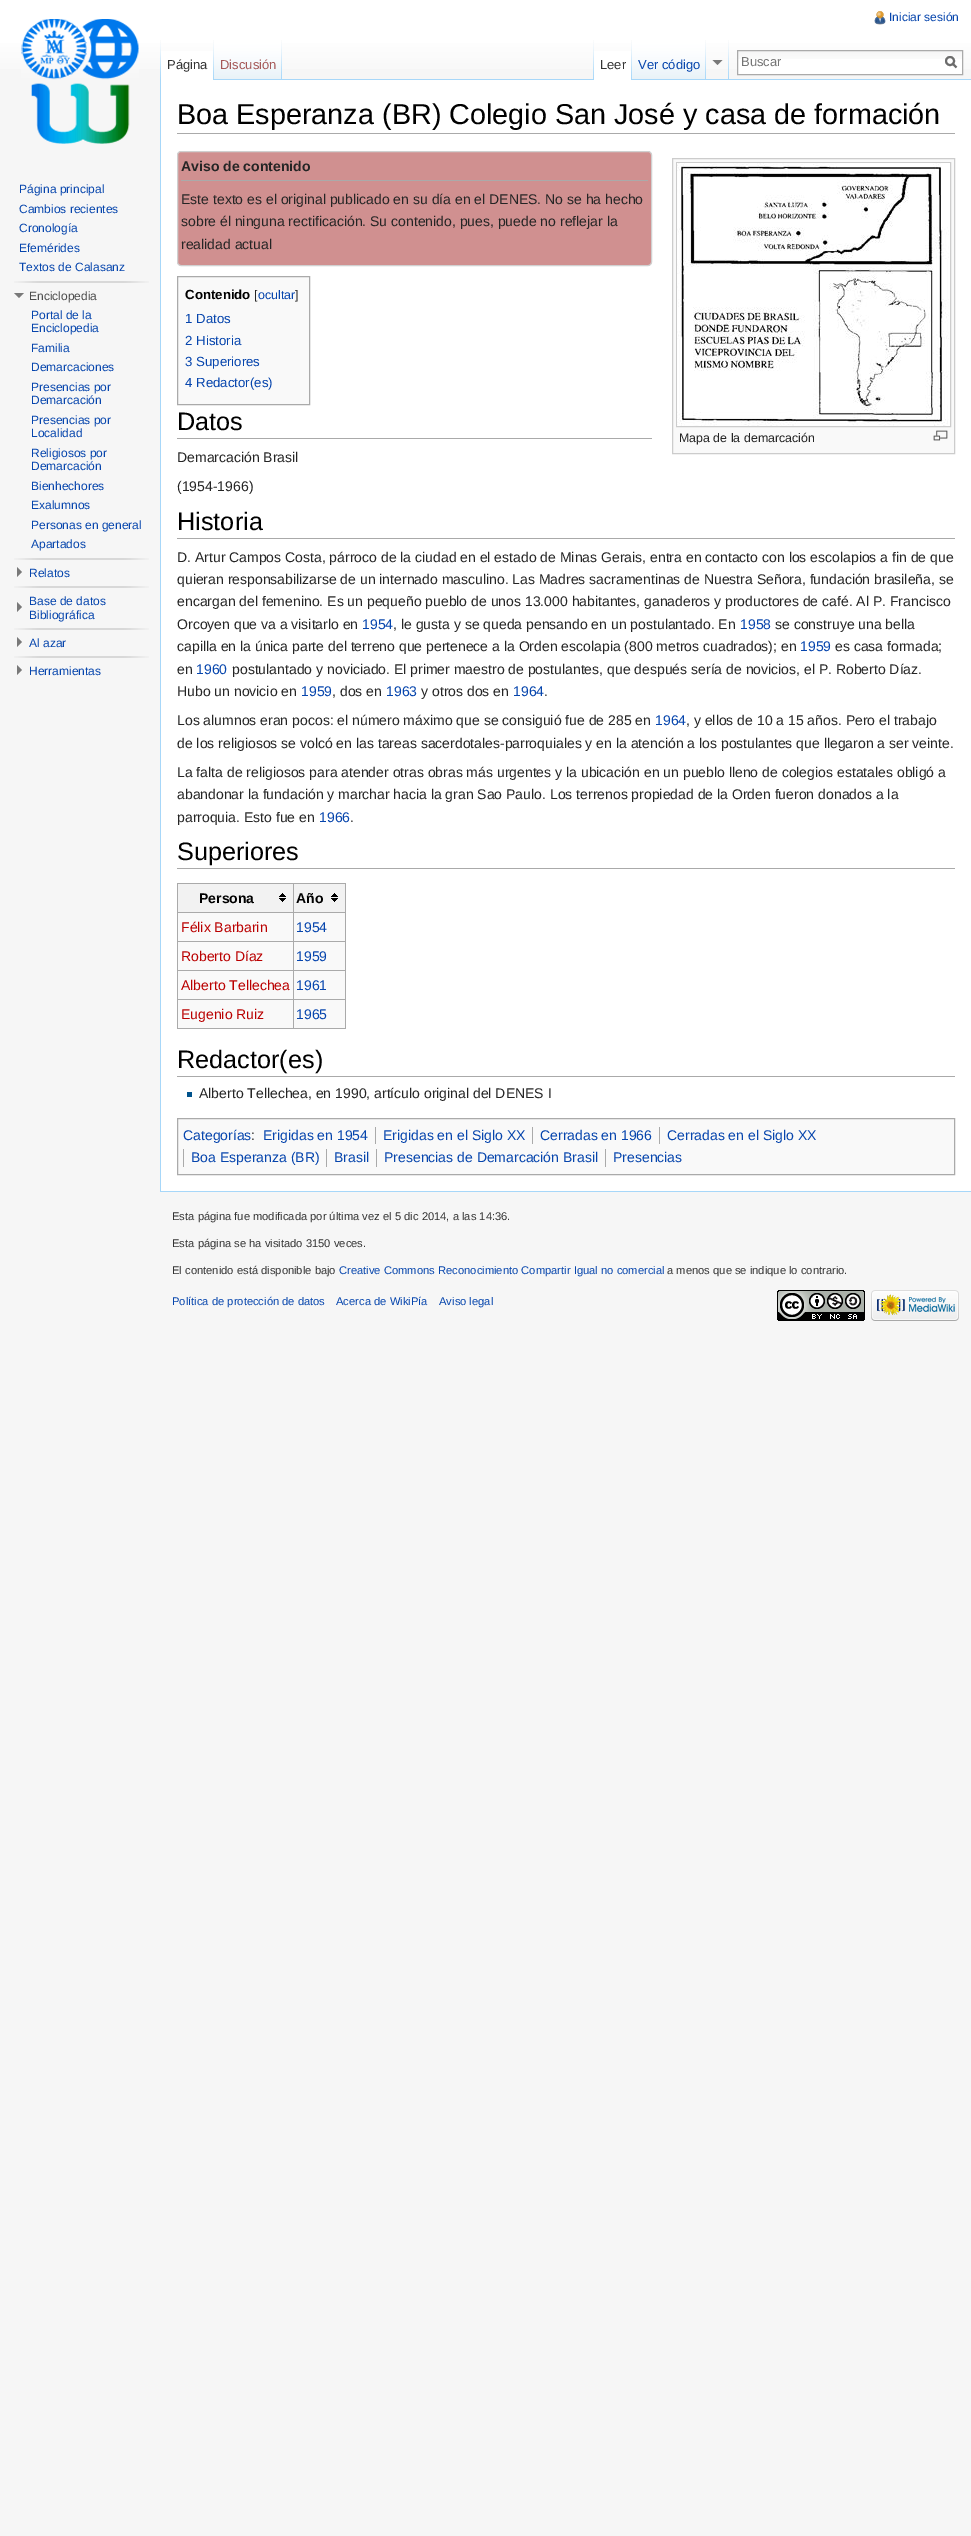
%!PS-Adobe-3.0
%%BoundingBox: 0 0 971 2536
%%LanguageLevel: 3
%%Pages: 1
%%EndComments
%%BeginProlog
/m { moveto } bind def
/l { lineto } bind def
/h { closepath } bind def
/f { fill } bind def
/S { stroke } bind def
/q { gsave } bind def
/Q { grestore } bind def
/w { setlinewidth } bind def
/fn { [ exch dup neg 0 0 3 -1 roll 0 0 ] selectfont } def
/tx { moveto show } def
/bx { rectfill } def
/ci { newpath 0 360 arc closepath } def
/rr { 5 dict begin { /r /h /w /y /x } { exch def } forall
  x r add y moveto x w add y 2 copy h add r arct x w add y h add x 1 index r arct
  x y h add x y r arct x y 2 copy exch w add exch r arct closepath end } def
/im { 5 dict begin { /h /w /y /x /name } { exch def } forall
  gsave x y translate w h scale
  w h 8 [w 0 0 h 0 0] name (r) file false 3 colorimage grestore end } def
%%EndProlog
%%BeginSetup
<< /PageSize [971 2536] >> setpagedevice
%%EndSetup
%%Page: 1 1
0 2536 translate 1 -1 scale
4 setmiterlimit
0.965 setgray
0 0 971 2536 bx
q 0 0 m 971 0 l 971 69 l 0 69 l h clip newpath
<< /ShadingType 2 /ColorSpace /DeviceRGB /Coords [486 0 486 80] /Extend [true true] /Function << /FunctionType 3 /Domain [0 1] /Functions [<< /FunctionType 2 /Domain [0 1] /C0 [1 1 1] /C1 [1 1 1] /N 1 >> << /FunctionType 2 /Domain [0 1] /C0 [1 1 1] /C1 [0.965 0.965 0.965] /N 1 >>] /Bounds [0.5] /Encode [0 1 0 1] >> >> shfill Q
(image0.raw) 874 11 12 14 im
/LiberationSans-Regular 12 fn
0.024 0.271 0.678 setrgbcolor
(Iniciar sesión) 889 21 tx
(image1.raw) 160 40 1 39 im
1 setgray
161 51 52 29 bx
(image2.raw) 213 40 1 40 im
/LiberationSans-Regular 13 fn
0.2 setgray
(Página) 167 69 tx
(image3.raw) 214 40 68 40 im
(image4.raw) 281 40 1 39 im
0.647 0.345 0.345 setrgbcolor
(Discusión) 220 69 tx
(image1.raw) 593 40 1 39 im
0.655 0.843 0.976 setrgbcolor
282 79 689 1 bx
1 setgray
594 51 37 29 bx
(image2.raw) 631 40 1 40 im
0.2 setgray
(Leer) 600 69 tx
(image5.raw) 632 40 74 40 im
(image4.raw) 705 40 1 39 im
0.024 0.271 0.678 setrgbcolor
(Ver código) 638 69 tx
0.475 setgray
722.5 60 m 717.5 65 l 712.5 60 l h f
(image4.raw) 728 40 1 39 im
1 setgray
738 59 224 15 bx
(image6.raw) 738 51 224 8 im
0.667 setgray
737.5 50.5 225 24 rectstroke
0.459 setgray
(Buscar) 741 66 tx
0.424 setgray
2 w
956.5 67.5 m 952.5 63.5 l S
950 61 4 ci S
(image7.raw) 21 19 118 125 im
/LiberationSans-Regular 12 fn
0.024 0.271 0.678 setrgbcolor
(Página principal) 19 193 tx
(Cambios recientes) 19 213 tx
(Cronología) 19 232 tx
(Efemérides) 19 252 tx
(Textos de Calasanz) 19 271 tx
(image8.raw) 14 281 135 2 im
0.475 setgray
24 293 m 19 298 l 14 293 l h f
0.302 setgray
(Enciclopedia) 29 300 tx
0.024 0.271 0.678 setrgbcolor
(Portal de la) 31 319 tx
(Enciclopedia) 31 332 tx
(Familia) 31 352 tx
(Demarcaciones) 31 371 tx
(Presencias por) 31 391 tx
(Demarcación) 31 404 tx
(Presencias por) 31 424 tx
(Localidad) 31 437 tx
(Religiosos por) 31 457 tx
(Demarcación) 31 470 tx
(Bienhechores) 31 490 tx
(Exalumnos) 31 509 tx
(Personas en general) 31 529 tx
(Apartados) 31 548 tx
(image8.raw) 14 558 135 2 im
0.475 setgray
17 567 m 22 572 l 17 577 l h f
0.024 0.271 0.678 setrgbcolor
(Relatos) 29 577 tx
(image8.raw) 14 586 135 2 im
0.475 setgray
17 602 m 22 607 l 17 612 l h f
0.024 0.271 0.678 setrgbcolor
(Base de datos) 29 605 tx
(Bibliográfica) 29 619 tx
(image8.raw) 14 628 135 2 im
0.475 setgray
17 637 m 22 642 l 17 647 l h f
0.024 0.271 0.678 setrgbcolor
(Al azar) 29 647 tx
(image8.raw) 14 656 135 2 im
0.475 setgray
17 665 m 22 670 l 17 675 l h f
0.024 0.271 0.678 setrgbcolor
(Herramientas) 29 675 tx
1 setgray
161 80 810 1111 bx
0.655 0.843 0.976 setrgbcolor
160 1191 811 1 bx
160 79 1 1113 bx
0.667 setgray
177 133 778 1 bx
/LiberationSans-Regular 28.8 fn
0 setgray
(Boa Esperanza \(BR\) Colegio San José y casa de formación) 177 124 tx
0.816 0.565 0.565 setrgbcolor
177.5 151.5 474 114 3.5 rr q f Q
0.816 setgray
1 w
S
/LiberationSans-Bold 14 fn
0.145 setgray
(Aviso de contenido) 181 171 tx
0.667 setgray
181 180 467 1 bx
/LiberationSans-Regular 14 fn
0.145 setgray
(Este texto es el original publicado en su día en el DENES. No se ha hecho) 181 204 tx
(sobre él ninguna rectificación. Su contenido, pues, puede no reflejar la) 181 226 tx
(realidad actual) 181 249 tx
0.976 setgray
177.5 276.5 m 309.5 276.5 l 309.5 404.5 l 177.5 404.5 l h q f Q
0.667 setgray
S
/LiberationSans-Bold 13.25 fn
0 setgray
(Contenido) 185 299 tx
/LiberationSans-Regular 12.5 fn
0.145 setgray
([) 254 299 tx
0.024 0.271 0.678 setrgbcolor
(ocultar) 258 299 tx
0.145 setgray
(]) 295 299 tx
/LiberationSans-Regular 13.25 fn
0.024 0.271 0.678 setrgbcolor
(1 Datos) 185 323 tx
(2 Historia) 185 345 tx
(3 Superiores) 185 366 tx
(4 Redactor\(es\)) 185 387 tx
0.667 setgray
177 438 475 1 bx
/LiberationSans-Regular 25.25 fn
0 setgray
(Datos) 177 430 tx
0.976 setgray
672.5 158.5 m 954.5 158.5 l 954.5 453.5 l 672.5 453.5 l h q f Q
0.8 setgray
S
676.5 162.5 274 264 rectstroke
(image9.raw) 677 163 273 263 im
/LiberationSans-Regular 12.4 fn
0.145 setgray
(Mapa de la demarcación) 679 442 tx
(image10.raw) 933 430 15 11 im
/LiberationSans-Regular 14 fn
(Demarcación Brasil) 177 462 tx
(\(1954-1966\)) 177 491 tx
0.667 setgray
177 538 778 1 bx
/LiberationSans-Regular 25.25 fn
0 setgray
(Historia) 177 530 tx
/LiberationSans-Regular 14 fn
0.145 setgray
(D. Artur Campos Costa, párroco de la ciudad en el estado de Minas Gerais, entra en contacto con los escolapios a fin de que) 177 562 tx
(quieran responsabilizarse de un internado masculino. Las Madres sacramentinas de Nuestra Señora, fundación brasileña, se) 177 584 tx
(encargan del femenino. Es un pequeño pueblo de unos 13.000 habitantes, ganaderos y productores de café. Al P. Francisco) 177 606 tx
(Orcoyen que va a visitarlo en) 177 629 tx
0.024 0.271 0.678 setrgbcolor
(1954) 362 629 tx
0.145 setgray
(, le gusta y se queda pensando en un postulantado. En) 393 629 tx
0.024 0.271 0.678 setrgbcolor
(1958) 740 629 tx
0.145 setgray
(se construye una bella) 775 629 tx
(capilla en la única parte del terreno que pertenece a la Orden escolapia \(800 metros cuadrados\); en) 177 651 tx
0.024 0.271 0.678 setrgbcolor
(1959) 800 651 tx
0.145 setgray
(es casa formada;) 835 651 tx
(en) 177 674 tx
0.024 0.271 0.678 setrgbcolor
(1960) 196 674 tx
0.145 setgray
(postulantado y noviciado. El primer maestro de postulantes, que después sería de novicios, el P. Roberto Díaz.) 232 674 tx
(Hubo un novicio en) 177 696 tx
0.024 0.271 0.678 setrgbcolor
(1959) 301 696 tx
0.145 setgray
(, dos en) 332 696 tx
0.024 0.271 0.678 setrgbcolor
(1963) 386 696 tx
0.145 setgray
(y otros dos en) 421 696 tx
0.024 0.271 0.678 setrgbcolor
(1964) 513 696 tx
0.145 setgray
(.) 544 696 tx
(Los alumnos eran pocos: el número máximo que se consiguió fue de 285 en) 177 725 tx
0.024 0.271 0.678 setrgbcolor
(1964) 655 725 tx
0.145 setgray
(, y ellos de 10 a 15 años. Pero el trabajo) 686 725 tx
(de los religiosos se volcó en las tareas sacerdotales-parroquiales y en la atención a los postulantes que llegaron a ser veinte.) 177 748 tx
(La falta de religiosos para atender otras obras más urgentes y la ubicación en un pueblo lleno de colegios estatales obligó a) 177 777 tx
(abandonar la fundación y marchar hacia la gran Sao Paulo. Los terrenos propiedad de la Orden fueron donados a la) 177 799 tx
(parroquia. Esto fue en) 177 822 tx
0.024 0.271 0.678 setrgbcolor
(1966) 319 822 tx
0.145 setgray
(.) 350 822 tx
0.667 setgray
177 868 778 1 bx
/LiberationSans-Regular 25.25 fn
0 setgray
(Superiores) 177 860 tx
0.976 setgray
178 913 167 115 bx
0.667 setgray
177 883 169 1 bx
345 883 1 146 bx
177 1028 169 1 bx
177 883 1 146 bx
0.949 setgray
178 884 115 28 bx
(image11.raw) 279 893 7 9 im
/LiberationSans-Bold 14 fn
0 setgray
(Persona) 199 903 tx
0.949 setgray
294 884 51 28 bx
(image11.raw) 331 893 7 9 im
0.667 setgray
293 912 53 1 bx
293 941 53 1 bx
293 970 53 1 bx
293 999 53 1 bx
293 999 1 30 bx
177 999 117 1 bx
293 970 1 30 bx
177 970 117 1 bx
293 941 1 30 bx
177 941 117 1 bx
293 912 1 30 bx
177 912 117 1 bx
293 883 1 30 bx
0 setgray
(Año) 296 903 tx
/LiberationSans-Regular 14 fn
0.729 0 0 setrgbcolor
(Félix Barbarin) 181 932 tx
0.024 0.271 0.678 setrgbcolor
(1954) 296 932 tx
0.729 0 0 setrgbcolor
(Roberto Díaz) 181 961 tx
0.024 0.271 0.678 setrgbcolor
(1959) 296 961 tx
0.729 0 0 setrgbcolor
(Alberto Tellechea) 181 990 tx
0.024 0.271 0.678 setrgbcolor
(1961) 296 990 tx
0.729 0 0 setrgbcolor
(Eugenio Ruiz) 181 1019 tx
0.024 0.271 0.678 setrgbcolor
(1965) 296 1019 tx
0.667 setgray
177 1076 778 1 bx
/LiberationSans-Regular 25.25 fn
0 setgray
(Redactor\(es\)) 177 1068 tx
0 0.322 0.549 setrgbcolor
187 1092 5 5 bx
/LiberationSans-Regular 14 fn
0.145 setgray
(Alberto Tellechea, en 1990, artículo original del DENES I) 199 1098 tx
0.976 setgray
177.5 1118.5 m 954.5 1118.5 l 954.5 1174.5 l 177.5 1174.5 l h q f Q
0.667 setgray
S
0.024 0.271 0.678 setrgbcolor
(Categorías) 183 1140 tx
(Erigidas en 1954) 263 1140 tx
0.667 setgray
375 1127 1 17 bx
0.024 0.271 0.678 setrgbcolor
(Erigidas en el Siglo XX) 383 1140 tx
0.667 setgray
532 1127 1 17 bx
0.024 0.271 0.678 setrgbcolor
(Cerradas en 1966) 540 1140 tx
0.667 setgray
659 1127 1 17 bx
0.024 0.271 0.678 setrgbcolor
(Cerradas en el Siglo XX) 667 1140 tx
0.667 setgray
183 1149 1 18 bx
0.024 0.271 0.678 setrgbcolor
(Boa Esperanza \(BR\)) 191 1162 tx
0.667 setgray
326 1149 1 18 bx
0.024 0.271 0.678 setrgbcolor
(Brasil) 334 1162 tx
0.667 setgray
376 1149 1 18 bx
0.024 0.271 0.678 setrgbcolor
(Presencias de Demarcación Brasil) 384 1162 tx
0.667 setgray
605 1149 1 18 bx
0.024 0.271 0.678 setrgbcolor
(Presencias) 613 1162 tx
0.145 setgray
(:) 251 1140 tx
/LiberationSans-Regular 11.2 fn
0.2 setgray
(Esta página fue modificada por última vez el 5 dic 2014, a las 14:36.) 172 1220 tx
(Esta página se ha visitado 3150 veces.) 172 1247 tx
(El contenido está disponible bajo) 172 1274 tx
0.024 0.271 0.678 setrgbcolor
(Creative Commons Reconocimiento Compartir Igual no comercial) 339 1274 tx
0.2 setgray
(a menos que se indique lo contrario.) 667 1274 tx
0.024 0.271 0.678 setrgbcolor
(Política de protección de datos) 172 1305 tx
(Acerca de WikiPía) 336 1305 tx
(Aviso legal) 439 1305 tx
(image12.raw) 777 1290 88 31 im
(image13.raw) 871 1290 88 31 im
showpage
%%EOF
